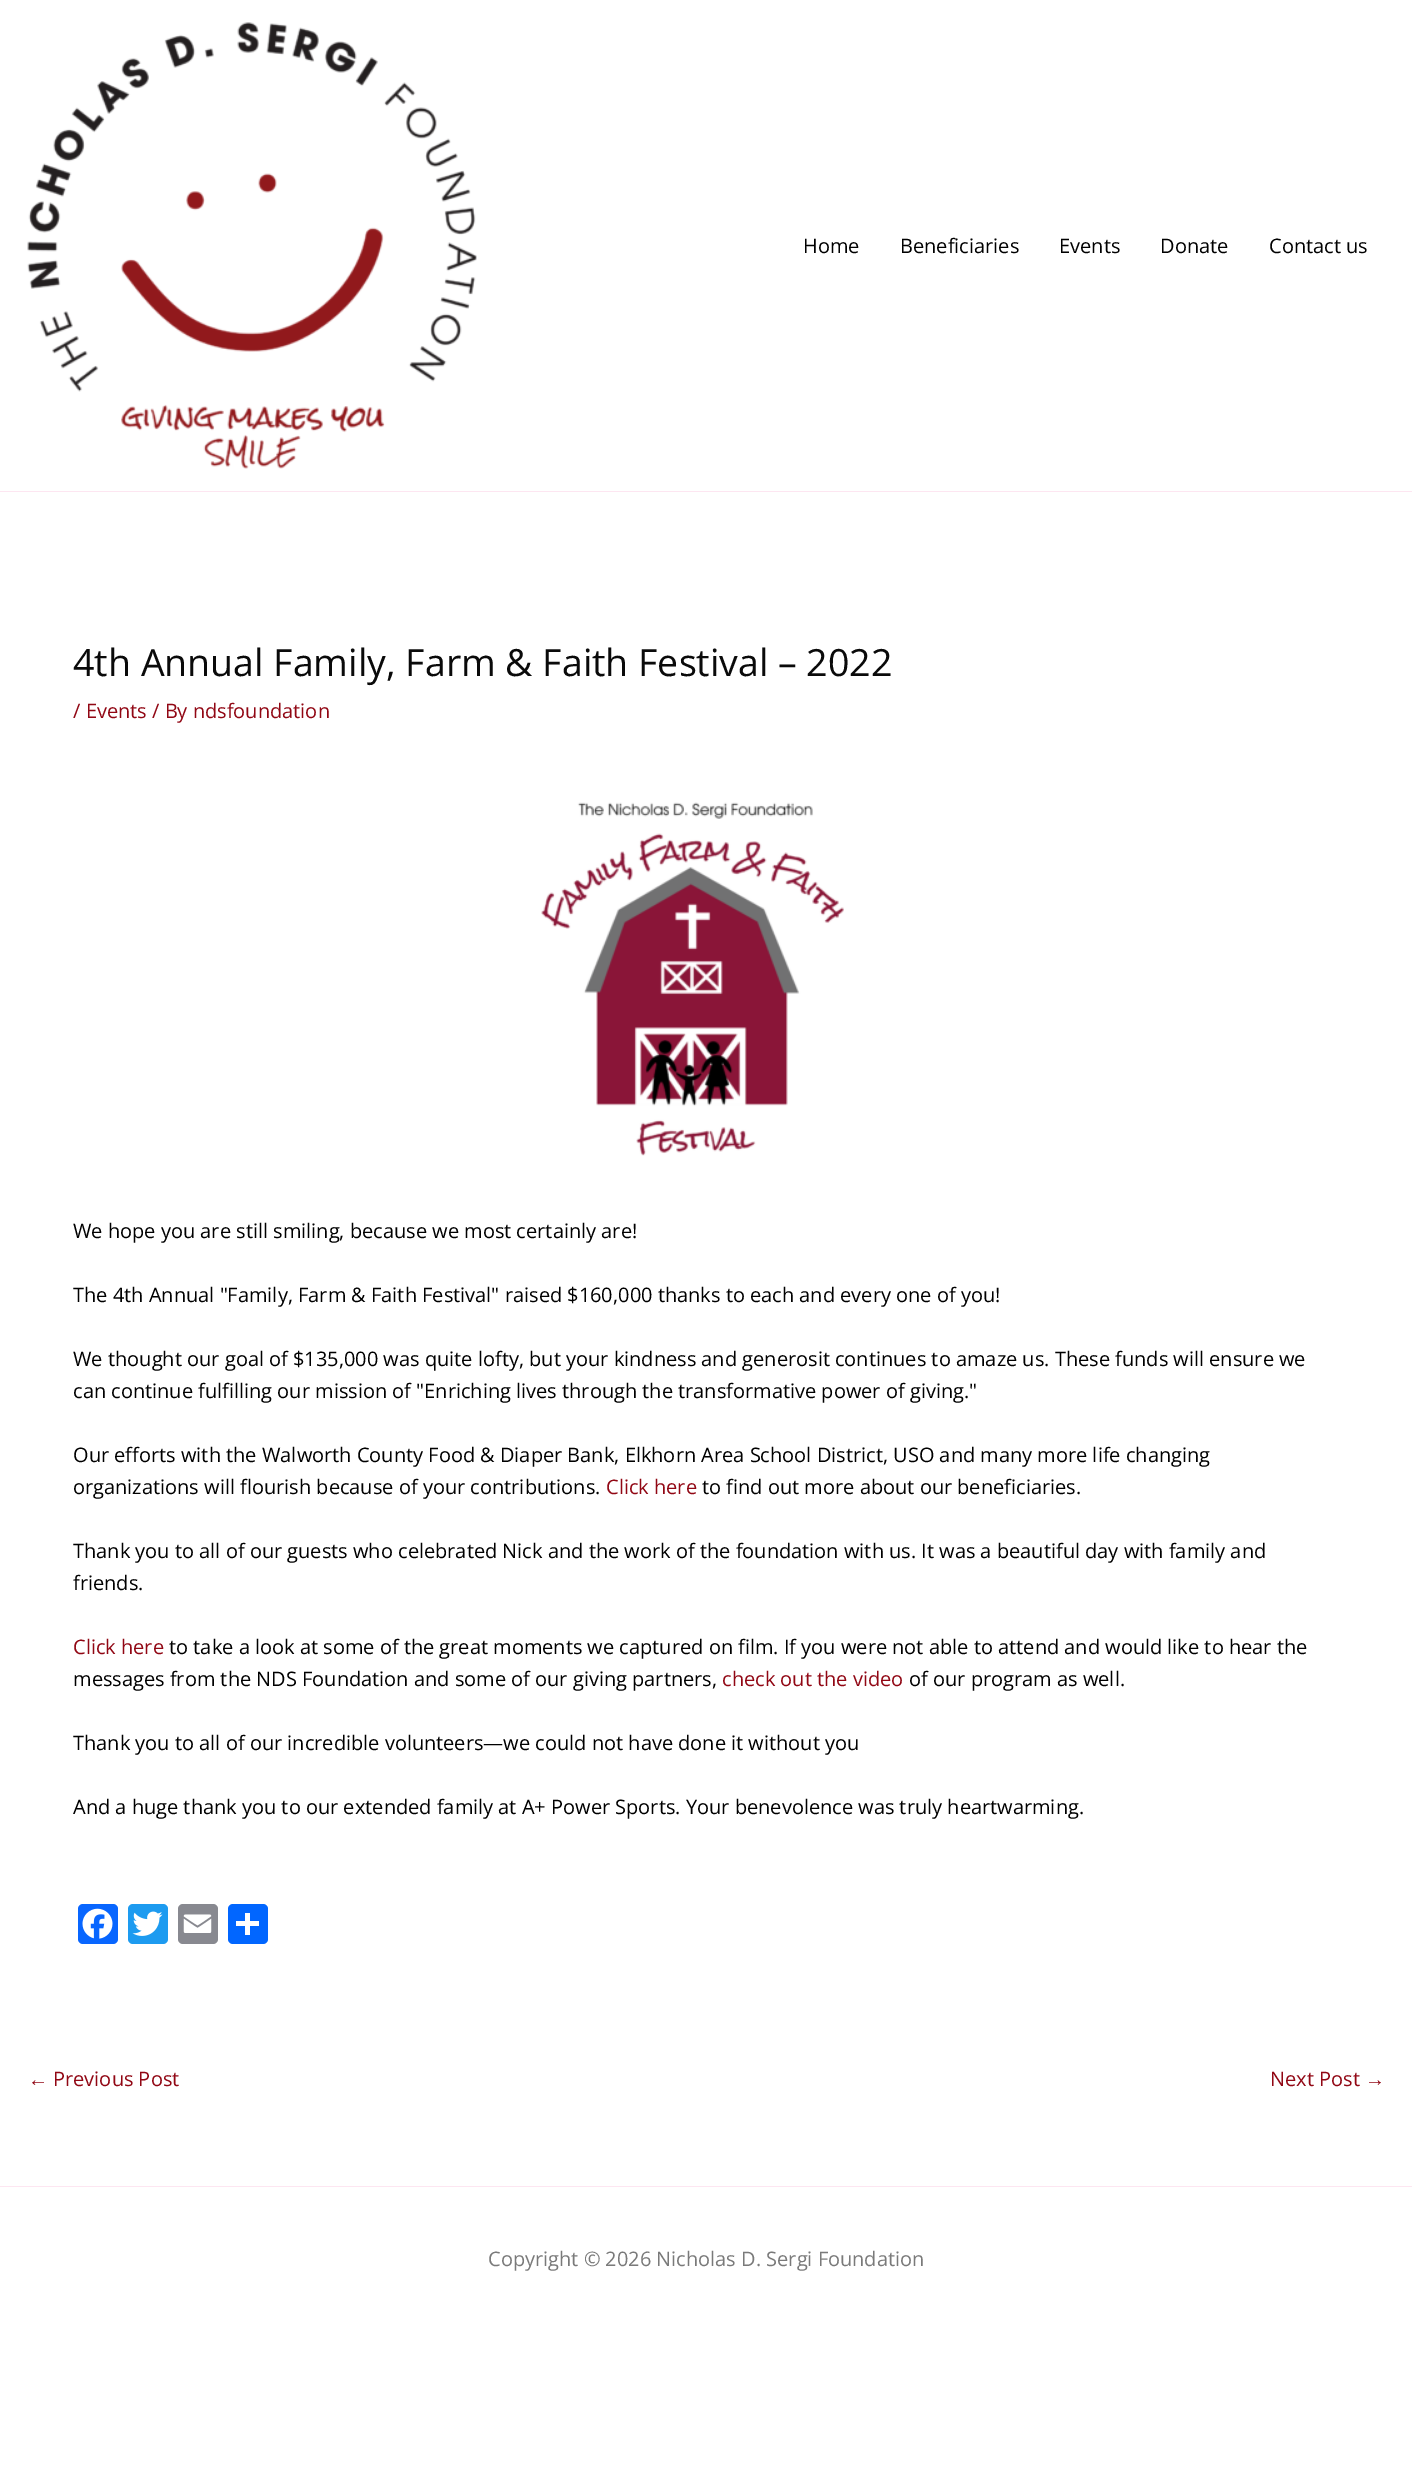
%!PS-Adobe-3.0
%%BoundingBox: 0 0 1412 2482
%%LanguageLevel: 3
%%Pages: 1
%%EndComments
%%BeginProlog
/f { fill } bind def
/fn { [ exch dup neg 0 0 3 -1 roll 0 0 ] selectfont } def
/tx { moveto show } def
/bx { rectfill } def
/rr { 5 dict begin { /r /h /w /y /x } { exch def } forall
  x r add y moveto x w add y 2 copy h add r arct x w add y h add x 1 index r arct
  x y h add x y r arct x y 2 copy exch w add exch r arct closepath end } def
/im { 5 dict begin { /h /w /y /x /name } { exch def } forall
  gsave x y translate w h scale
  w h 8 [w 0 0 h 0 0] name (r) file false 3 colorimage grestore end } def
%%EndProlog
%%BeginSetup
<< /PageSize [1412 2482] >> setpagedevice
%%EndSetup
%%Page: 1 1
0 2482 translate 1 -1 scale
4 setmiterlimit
1 setgray
0 0 1412 2482 bx
0.992 0.902 0.945 setrgbcolor
0 491 1412 1 bx
(image0.raw) 27 22 450 447 im
/OpenSans-Regular 20 fn
0 setgray
(Home) 803 253 tx
(Beneficiaries) 900 253 tx
(Events) 1059 253 tx
(Donate) 1160 253 tx
(Contact us) 1269 253 tx
/OpenSans-Regular 37.5 fn
0.039 setgray
(4th Annual Family, Farm & Faith Festival – 2022) 73 676 tx
/OpenSans-Regular 20 fn
0.569 0.027 0.078 setrgbcolor
(/ Events / By ndsfoundation) 73 718 tx
(image1.raw) 541 802 303 354 im
0 setgray
(We hope you are still smiling, because we most certainly are!) 73 1238 tx
(The 4th Annual "Family, Farm & Faith Festival" raised $160,000 thanks to each and every one of you!) 73 1302 tx
(We thought our goal of $135,000 was quite lofty, but your kindness and generosit continues to amaze us. These funds will ensure we) 73 1366 tx
(can continue fulfilling our mission of "Enriching lives through the transformative power of giving.") 73 1398 tx
(Our efforts with the Walworth County Food & Diaper Bank, Elkhorn Area School District, USO and many more life changing) 73 1462 tx
(organizations will flourish because of your contributions.) 73 1494 tx
0.569 0.027 0.078 setrgbcolor
(Click here) 606 1494 tx
0 setgray
(to find out more about our beneficiaries.) 702 1494 tx
(Thank you to all of our guests who celebrated Nick and the work of the foundation with us. It was a beautiful day with family and) 73 1558 tx
(friends.) 73 1590 tx
0.569 0.027 0.078 setrgbcolor
(Click here) 73 1654 tx
0 setgray
(to take a look at some of the great moments we captured on film. If you were not able to attend and would like to hear the) 169 1654 tx
(messages from the NDS Foundation and some of our giving partners,) 73 1686 tx
0.569 0.027 0.078 setrgbcolor
(check out the video) 722 1686 tx
0 setgray
(of our program as well.) 909 1686 tx
(Thank you to all of our incredible volunteers—we could not have done it without you) 73 1750 tx
(And a huge thank you to our extended family at A+ Power Sports. Your benevolence was truly heartwarming.) 73 1814 tx
0.031 0.4 1 setrgbcolor
78 1904 40 40 5 rr f
(image2.raw) 82 1908 31 31 im
0.114 0.608 0.941 setrgbcolor
128 1904 40 40 5 rr f
(image3.raw) 132 1911 31 25 im
0.533 0.537 0.565 setrgbcolor
178 1904 40 40 5 rr f
(image4.raw) 183 1914 29 19 im
0.004 0.4 1 setrgbcolor
228 1904 40 40 5 rr f
1 setgray
245 1913 5 22 bx
236 1921 23 5 bx
/LiberationSans-Regular 20 fn
0.569 0.027 0.078 setrgbcolor
(←) 28 2086 tx
/OpenSans-Regular 20 fn
(Previous Post) 53 2086 tx
(Next Post) 1270 2086 tx
/LiberationSans-Regular 20 fn
(→) 1365 2086 tx
0.992 0.902 0.945 setrgbcolor
0 2186 1412 1 bx
/OpenSans-Regular 20 fn
0.478 setgray
(Copyright © 2026 Nicholas D. Sergi Foundation) 488 2266 tx
showpage
%%EOF
